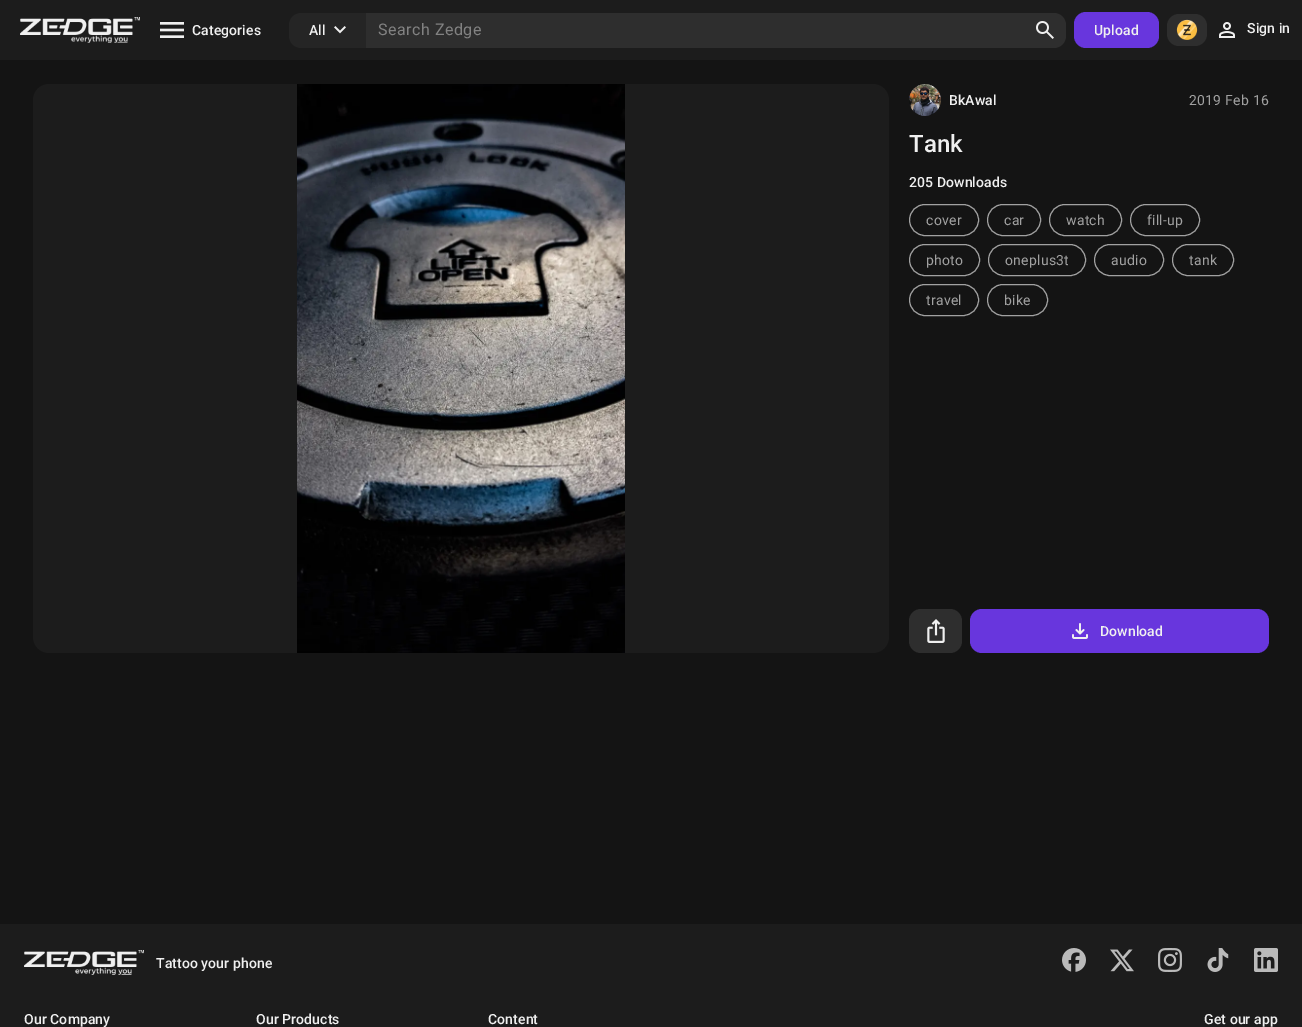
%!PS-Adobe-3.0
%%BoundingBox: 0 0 1302 1027
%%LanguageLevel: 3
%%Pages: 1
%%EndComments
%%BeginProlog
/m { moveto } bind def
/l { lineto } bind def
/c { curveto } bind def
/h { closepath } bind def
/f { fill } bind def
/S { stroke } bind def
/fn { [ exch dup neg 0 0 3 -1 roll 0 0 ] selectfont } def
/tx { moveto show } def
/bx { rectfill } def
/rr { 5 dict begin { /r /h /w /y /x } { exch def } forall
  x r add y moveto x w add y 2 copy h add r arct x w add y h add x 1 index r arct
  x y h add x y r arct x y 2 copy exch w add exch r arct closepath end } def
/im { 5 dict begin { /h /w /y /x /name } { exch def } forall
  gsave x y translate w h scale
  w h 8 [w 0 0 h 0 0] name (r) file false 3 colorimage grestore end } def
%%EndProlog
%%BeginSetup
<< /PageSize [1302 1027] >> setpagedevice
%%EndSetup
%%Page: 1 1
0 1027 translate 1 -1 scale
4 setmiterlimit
0.078 setgray
0 0 1302 1027 bx
0.11 setgray
0 0 1302 60 bx
(image0.raw) 20 17 120 18 im
(image1.raw) 71 35 57 8 im
(image2.raw) 160 22 24 16 im
/Roboto-Medium 14 fn
0.941 setgray
192 35 m 0.1 0 (Categories) ashow
0.145 setgray
301 13 m 366 13 l 366 48 l 301 48 l 294.5 48 289 42.5 289 36 c 289 25 l 289 18.5 294.5 13 301 13 c h f
0.941 setgray
309 35 m 0.1 0 (All) ashow
(image3.raw) 334 26 12 8 im
0.18 setgray
366 13 m 1054 13 l 1060.5 13 1066 18.5 1066 25 c 1066 36 l 1066 42.5 1060.5 48 1054 48 c 366 48 l h f
/Roboto-Regular 16 fn
0.51 setgray
378 35 m 0.5 0 (Search Zedge) ashow
(image4.raw) 1036 21 18 18 im
0.408 0.212 0.867 setrgbcolor
1074 12 85 36 12 rr f
/Roboto-Medium 14 fn
0.941 setgray
1094 35 m 0.1 0 (Upload) ashow
0.18 setgray
1167 14 40 32 12 rr f
(image5.raw) 1176 19 22 21 im
(image6.raw) 1219 22 16 16 im
0.941 setgray
1247 33 m 0.1 0 (Sign in) ashow
0.11 setgray
33 84 856 569 16 rr f
(image7.raw) 297 84 328 569 im
(image8.raw) 909 84 32 32 im
0.941 setgray
949 105 m 0.1 0 (BkAwal) ashow
/Roboto-Regular 14 fn
0.631 setgray
1189 105 m 0.25 0 (2019 Feb 16) ashow
/Roboto-Medium 24 fn
0.941 setgray
(Tank) 909 152 tx
/Roboto-Medium 14 fn
909 187 m 0.1 0 (205 Downloads) ashow
0.631 setgray
909.5 204.5 69 31 15.5 rr S
/Roboto-Regular 14 fn
926 225 m 0.25 0 (cover) ashow
987.5 204.5 53 31 15.5 rr S
1004 225 m 0.25 0 (car) ashow
1049.5 204.5 72 31 15.5 rr S
1066 225 m 0.25 0 (watch) ashow
1130.5 204.5 69 31 15.5 rr S
1147 225 m 0.25 0 (fill-up) ashow
909.5 244.5 70 31 15.5 rr S
926 265 m 0.25 0 (photo) ashow
988.5 244.5 97 31 15.5 rr S
1005 265 m 0.25 0 (oneplus3t) ashow
1094.5 244.5 69 31 15.5 rr S
1111 265 m 0.25 0 (audio) ashow
1172.5 244.5 61 31 15.5 rr S
1189 265 m 0.25 0 (tank) ashow
909.5 284.5 69 31 15.5 rr S
926 305 m 0.25 0 (travel) ashow
987.5 284.5 60 31 15.5 rr S
1004 305 m 0.25 0 (bike) ashow
0.18 setgray
909 609 53 44 12 rr f
(image9.raw) 927 619 18 24 im
0.408 0.212 0.867 setrgbcolor
970 609 299 44 12 rr f
(image10.raw) 1072 623 16 16 im
/Roboto-Medium 14 fn
0.941 setgray
1100 636 m 0.1 0 (Download) ashow
0.11 setgray
0 924 1302 103 bx
(image11.raw) 24 950 120 17 im
(image12.raw) 75 967 57 8 im
0.941 setgray
156 968 m 0.1 0 (Tattoo your phone) ashow
(image13.raw) 1062 948 24 24 im
(image14.raw) 1110 949 24 23 im
(image15.raw) 1158 948 24 24 im
(image16.raw) 1207 948 22 24 im
(image17.raw) 1254 948 24 24 im
24 1024 m 0.1 0 (Our Company) ashow
256 1024 m 0.1 0 (Our Products) ashow
488 1024 m 0.1 0 (Content) ashow
1204 1024 m 0.1 0 (Get our app) ashow
showpage
%%EOF
